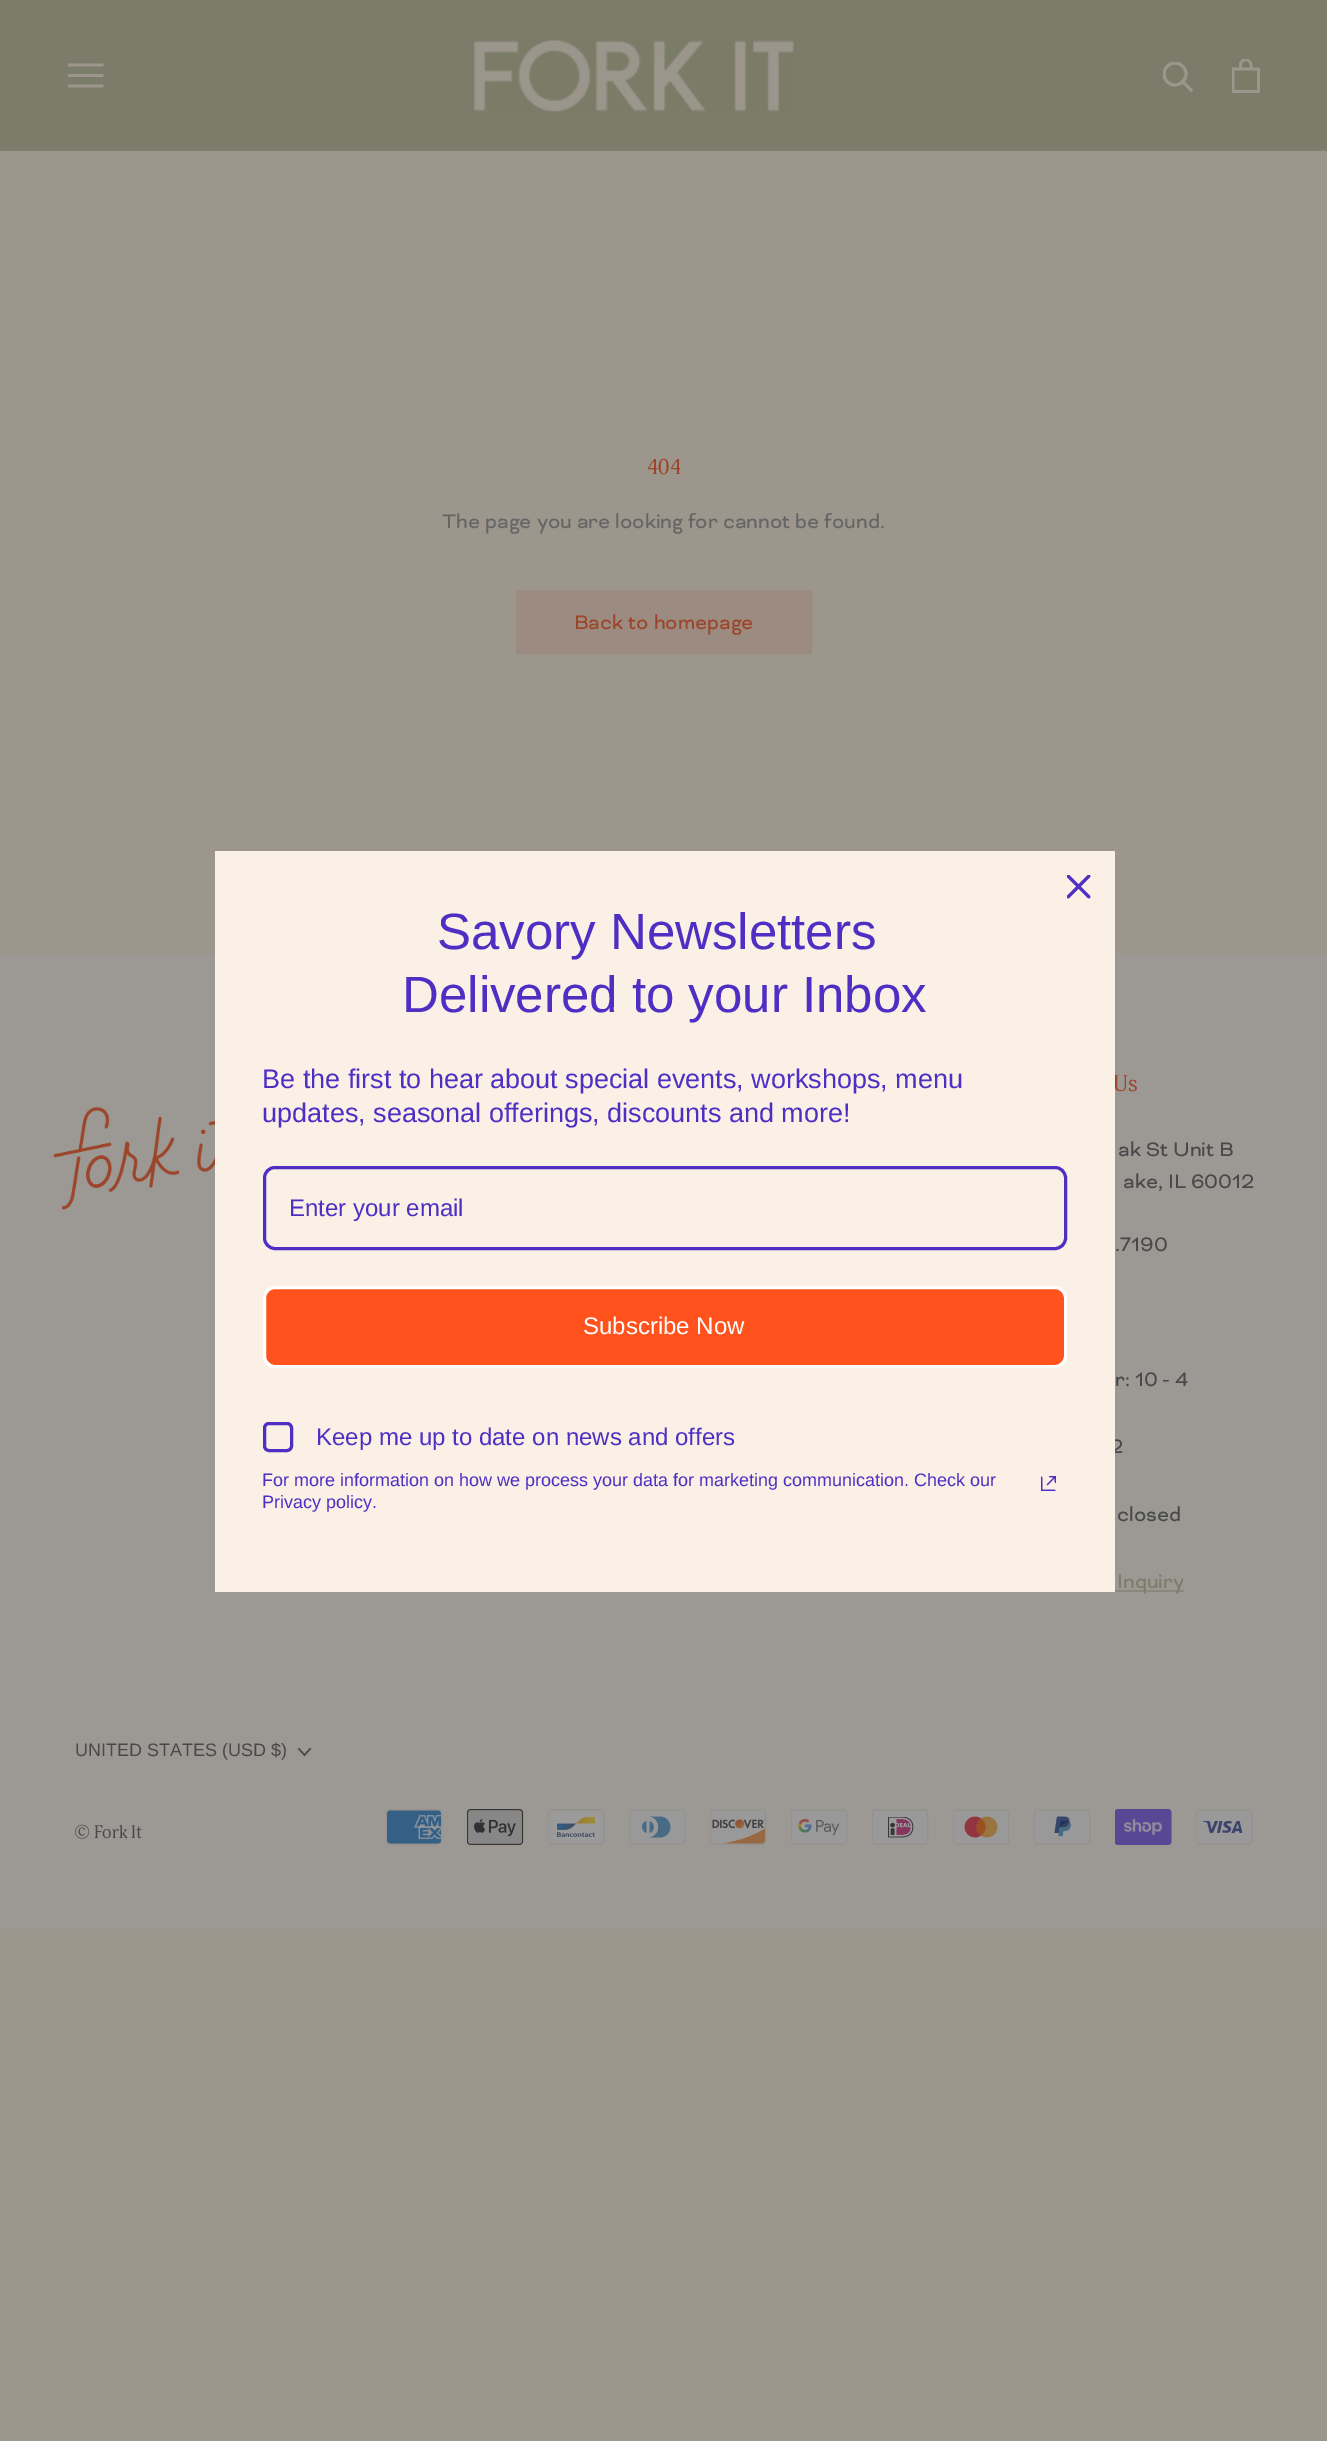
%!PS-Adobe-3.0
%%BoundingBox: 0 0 1327 2441
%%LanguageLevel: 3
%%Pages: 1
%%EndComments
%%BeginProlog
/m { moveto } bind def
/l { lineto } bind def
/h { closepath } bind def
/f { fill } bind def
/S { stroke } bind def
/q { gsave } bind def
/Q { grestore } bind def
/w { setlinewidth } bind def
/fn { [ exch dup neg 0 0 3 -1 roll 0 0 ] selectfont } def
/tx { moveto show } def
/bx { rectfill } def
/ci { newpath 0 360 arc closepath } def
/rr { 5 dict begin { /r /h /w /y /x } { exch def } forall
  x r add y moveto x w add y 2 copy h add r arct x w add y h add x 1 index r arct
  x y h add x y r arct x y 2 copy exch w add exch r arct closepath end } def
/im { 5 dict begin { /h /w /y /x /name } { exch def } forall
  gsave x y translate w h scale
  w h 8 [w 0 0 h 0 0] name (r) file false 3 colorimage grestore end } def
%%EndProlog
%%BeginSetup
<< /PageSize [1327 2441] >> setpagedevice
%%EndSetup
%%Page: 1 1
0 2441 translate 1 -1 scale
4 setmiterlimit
0.612 0.588 0.549 setrgbcolor
0 0 1327 2441 bx
0.482 0.486 0.412 setrgbcolor
0 0 1327 149 bx
0.502 0.502 0.431 setrgbcolor
0 149 1327 2 bx
q
68 63 36 26 rectclip
0.612 0.588 0.549 setrgbcolor
67.5 87.5 m 67.5 84.5 l 103.5 84.5 l 103.5 87.5 l h 67.5 74 m 103.5 74 l 103.5 77 l 67.5 77 l h 67.5 63.5 m 103.5 63.5 l 103.5 66.5 l 67.5 66.5 l h f
Q
(image0.raw) 473 39 321 74 im
0.612 0.588 0.549 setrgbcolor
3 w
2 setlinecap
1191 90 m 1182.5 81.5 l S
q
1163 62 31 31 rectclip
0 setlinecap
1175 74 11 ci S
Q
(image1.raw) 1232 59 28 34 im
/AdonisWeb-Regular 21 fn
0.612 0.271 0.165 setrgbcolor
(404) 647 474 tx
/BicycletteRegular-Regular 22.5 fn
0.396 setgray
(The page you are looking for cannot be found.) 442 528 tx
0.612 0.545 0.502 setrgbcolor
2 w
0 setlinecap
517 591 294 62 rectstroke
518 592 292 60 bx
0.612 0.271 0.165 setrgbcolor
(Back to homepage) 574 629 tx
0.612 0.6 0.584 setrgbcolor
0 954 1327 975 bx
(image2.raw) 53 1106 162 104 im
/AdonisWeb-Regular 22.5 fn
0.612 0.271 0.165 setrgbcolor
(Us) 1113 1091 tx
/BicycletteRegular-Regular 22.5 fn
0.282 0.286 0.29 setrgbcolor
(ak St Unit B) 1118 1156 tx
(ake, IL 60012) 1123 1188 tx
(.7190) 1115 1251 tx
(r: 10 - 4) 1115 1386 tx
(2) 1110 1453 tx
(closed) 1117 1521 tx
0.533 0.533 0.482 setrgbcolor
1115 1590 69 2 bx
0.482 0.486 0.412 setrgbcolor
(Inquiry) 1117 1588 tx
/LiberationSans-Regular 18 fn
0.282 0.286 0.29 setrgbcolor
(UNITED STATES \(USD $\)) 75 1756 tx
1.5 w
2 setlinecap
310 1749 m 304.5 1755 l 299 1749 l S
/AdonisWeb-Regular 18 fn
(© Fork It) 75 1838 tx
(image3.raw) 386 1809 57 36 im
(image4.raw) 467 1809 57 36 im
(image5.raw) 548 1809 57 36 im
(image6.raw) 629 1809 57 36 im
(image7.raw) 710 1809 57 36 im
(image8.raw) 791 1809 57 36 im
(image9.raw) 872 1809 57 36 im
(image10.raw) 953 1809 57 36 im
(image11.raw) 1034 1809 57 36 im
(image12.raw) 1115 1809 57 36 im
(image13.raw) 1196 1809 57 36 im
0.98 0.941 0.902 setrgbcolor
215 851 900 741 bx
(image14.raw) 1067 875 24 24 im
/LiberationSans-Regular 51 fn
0.31 0.18 0.769 setrgbcolor
(Savory Newsletters) 437 949 tx
(Delivered to your Inbox) 402 1012 tx
/LiberationSans-Regular 27 fn
(Be the first to hear about special events, workshops, menu) 262 1088 tx
(updates, seasonal offerings, discounts and more!) 262 1122 tx
3 w
0 setlinecap
264.5 1167.5 801 81 10.5 rr S
/LiberationSans-Regular 24 fn
(Enter your email) 289 1216 tx
1 0.322 0.11 setrgbcolor
264.5 1287.5 801 79 10.5 rr q f Q
1 setgray
S
(Subscribe Now) 583 1334 tx
0.31 0.18 0.769 setrgbcolor
264.5 1423.5 27 27 4.5 rr S
(Keep me up to date on news and offers) 316 1445 tx
/LiberationSans-Regular 18 fn
(For more information on how we process your data for marketing communication. Check our) 262 1486 tx
(Privacy policy.) 262 1508 tx
(image15.raw) 1041 1476 15 15 im
showpage
%%EOF
